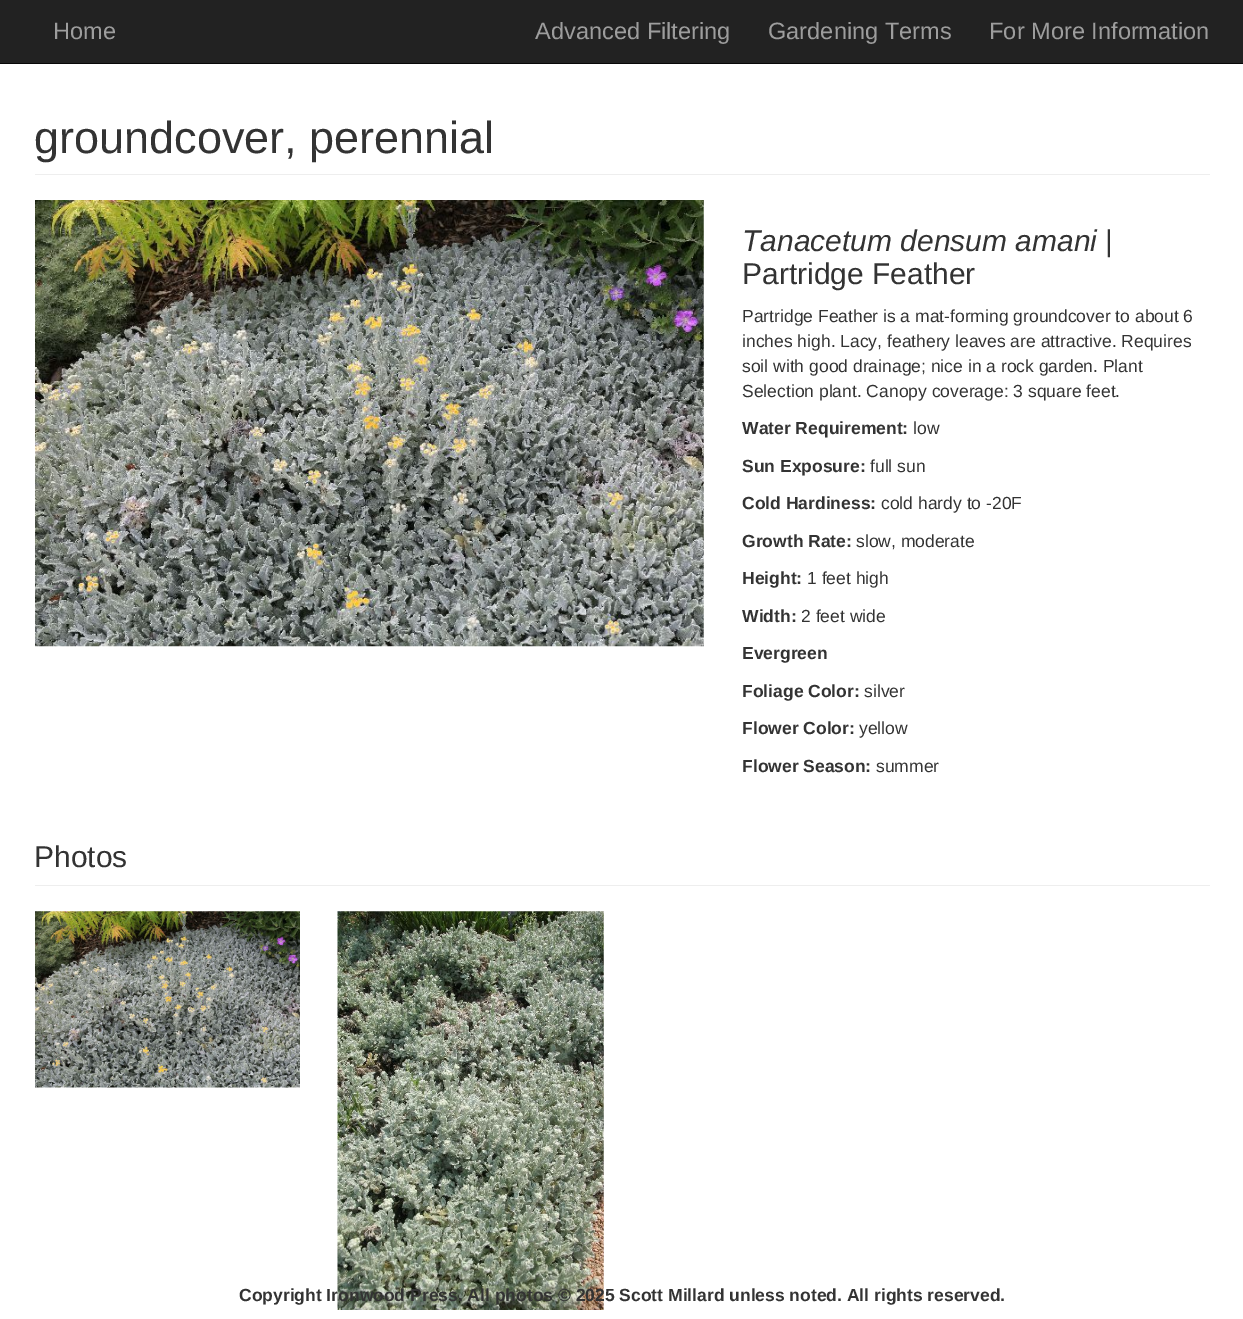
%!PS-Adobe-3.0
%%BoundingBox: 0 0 1243 1319
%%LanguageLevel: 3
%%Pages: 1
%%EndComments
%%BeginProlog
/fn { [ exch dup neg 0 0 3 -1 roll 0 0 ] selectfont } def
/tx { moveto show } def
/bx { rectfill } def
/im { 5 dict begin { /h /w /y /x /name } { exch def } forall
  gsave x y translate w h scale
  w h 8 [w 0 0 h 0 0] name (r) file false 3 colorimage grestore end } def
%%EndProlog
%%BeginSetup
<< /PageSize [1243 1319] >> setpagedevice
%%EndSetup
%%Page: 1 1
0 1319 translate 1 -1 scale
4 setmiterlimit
1 setgray
0 0 1243 1319 bx
0.133 setgray
0 0 1243 63 bx
0.031 setgray
0 63 1243 1 bx
/LiberationSans-Regular 23.6 fn
0.616 setgray
(Home) 53 39 tx
(Advanced Filtering) 535 39 tx
(Gardening Terms) 768 39 tx
(For More Information) 989 39 tx
0.933 setgray
35 174 1175 1 bx
/LiberationSans-Regular 45 fn
0.2 setgray
(groundcover, perennial) 34 153 tx
(image0.raw) 35 200 669 447 im
/LiberationSans-Italic 30 fn
(Tanacetum densum amani) 742 251 tx
/LiberationSans-Regular 30 fn
(|) 1105 251 tx
(Partridge Feather) 742 284 tx
/LiberationSans-Regular 17.5 fn
(Partridge Feather is a mat-forming groundcover to about 6) 742 322 tx
(inches high. Lacy, feathery leaves are attractive. Requires) 742 347 tx
(soil with good drainage; nice in a rock garden. Plant) 742 372 tx
(Selection plant. Canopy coverage: 3 square feet.) 742 397 tx
/LiberationSans-Bold 17.5 fn
(Water Requirement:) 742 434 tx
/LiberationSans-Regular 17.5 fn
(low) 913 434 tx
/LiberationSans-Bold 17.5 fn
(Sun Exposure:) 742 472 tx
/LiberationSans-Regular 17.5 fn
(full sun) 870 472 tx
/LiberationSans-Bold 17.5 fn
(Cold Hardiness:) 742 509 tx
/LiberationSans-Regular 17.5 fn
(cold hardy to -20F) 881 509 tx
/LiberationSans-Bold 17.5 fn
(Growth Rate:) 742 547 tx
/LiberationSans-Regular 17.5 fn
(slow, moderate) 856 547 tx
/LiberationSans-Bold 17.5 fn
(Height:) 742 584 tx
/LiberationSans-Regular 17.5 fn
(1 feet high) 807 584 tx
/LiberationSans-Bold 17.5 fn
(Width:) 742 622 tx
/LiberationSans-Regular 17.5 fn
(2 feet wide) 801 622 tx
/LiberationSans-Bold 17.5 fn
(Evergreen) 742 659 tx
(Foliage Color:) 742 697 tx
/LiberationSans-Regular 17.5 fn
(silver) 864 697 tx
/LiberationSans-Bold 17.5 fn
(Flower Color:) 742 734 tx
/LiberationSans-Regular 17.5 fn
(yellow) 859 734 tx
/LiberationSans-Bold 17.5 fn
(Flower Season:) 742 772 tx
/LiberationSans-Regular 17.5 fn
(summer) 876 772 tx
0.933 setgray
35 885 1175 1 bx
/LiberationSans-Regular 30 fn
0.2 setgray
(Photos) 34 867 tx
(image1.raw) 35 911 265 177 im
(image2.raw) 337 911 267 399 im
/LiberationSans-Bold 17.5 fn
(Copyright Ironwood Press. All photos © 2025 Scott Millard unless noted. All rights reserved.) 239 1301 tx
showpage
%%EOF
